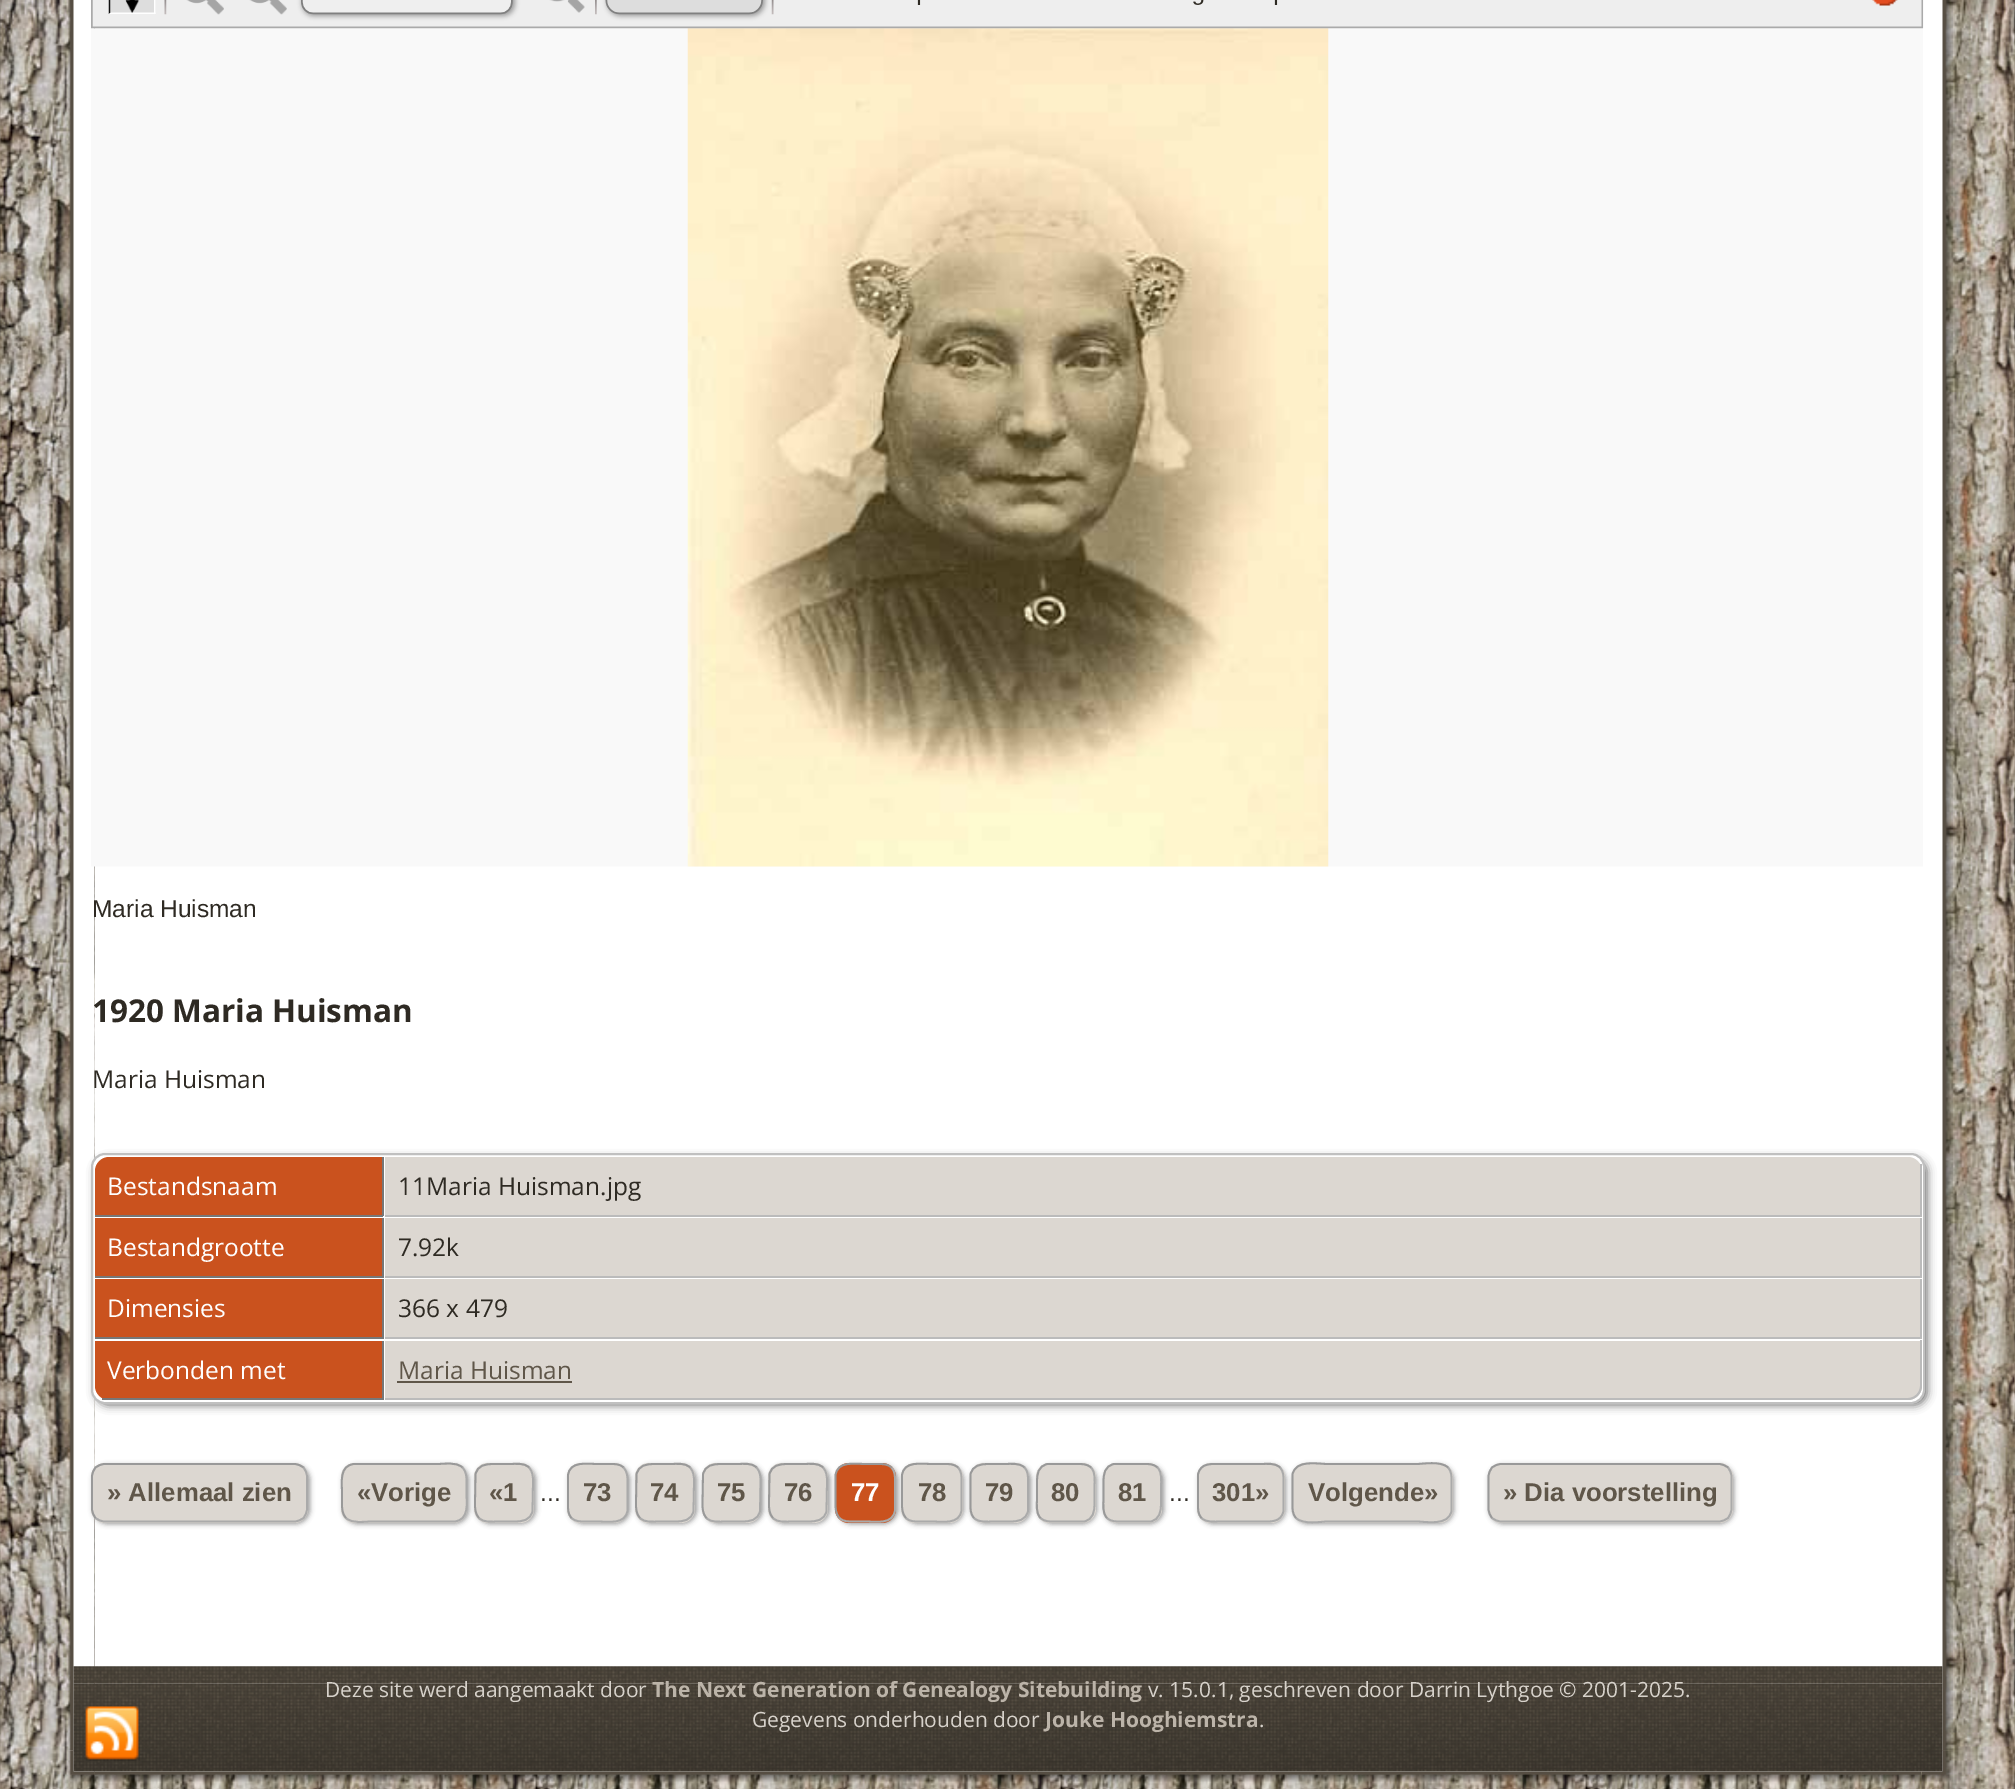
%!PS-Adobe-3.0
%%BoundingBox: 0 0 2015 1789
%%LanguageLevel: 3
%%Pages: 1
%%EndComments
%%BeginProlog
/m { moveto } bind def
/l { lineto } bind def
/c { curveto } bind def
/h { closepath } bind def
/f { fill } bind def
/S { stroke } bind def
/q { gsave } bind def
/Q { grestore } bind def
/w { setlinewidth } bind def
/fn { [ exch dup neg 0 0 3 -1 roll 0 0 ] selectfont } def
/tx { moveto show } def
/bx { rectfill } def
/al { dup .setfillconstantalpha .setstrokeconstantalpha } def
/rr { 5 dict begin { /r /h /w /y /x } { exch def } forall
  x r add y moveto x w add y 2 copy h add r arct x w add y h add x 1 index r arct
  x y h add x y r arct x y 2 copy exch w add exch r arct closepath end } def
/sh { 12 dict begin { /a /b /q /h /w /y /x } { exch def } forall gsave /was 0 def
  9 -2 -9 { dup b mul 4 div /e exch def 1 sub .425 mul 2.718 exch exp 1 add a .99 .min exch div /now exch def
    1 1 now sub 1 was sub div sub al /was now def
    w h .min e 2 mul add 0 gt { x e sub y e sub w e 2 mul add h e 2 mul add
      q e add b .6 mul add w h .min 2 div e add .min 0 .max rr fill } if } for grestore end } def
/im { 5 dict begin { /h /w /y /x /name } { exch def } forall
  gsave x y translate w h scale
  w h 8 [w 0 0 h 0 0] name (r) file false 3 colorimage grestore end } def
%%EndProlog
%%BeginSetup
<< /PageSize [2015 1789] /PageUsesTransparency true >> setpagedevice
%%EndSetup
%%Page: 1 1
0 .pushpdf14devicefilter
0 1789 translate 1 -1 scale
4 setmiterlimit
1 setgray
0 0 2015 1789 bx
(image0.raw) 0 0 2015 1789 im
(image1.raw) 68 0 27 1750 im
95 28 1827 1656 bx
(image2.raw) 1922 0 31 1750 im
(image3.raw) 91 0 1833 867 im
/LiberationSans-Regular 24.5 fn
0.18 0.165 0.137 setrgbcolor
(Maria Huisman) 92 917 tx
/OpenSans-Bold 31.5 fn
(1920 Maria Huisman) 92 1022 tx
/OpenSans-Regular 24.5 fn
(Maria Huisman) 92 1088 tx
0.4 setgray
96 1159 1831 246 12 4.5 1 sh
1 setgray
92 1154 1832 249 13 rr q f Q
0.753 setgray
2 w
S
0.792 0.322 0.118 setrgbcolor
109 1157 m 383 1157 l 383 1216 l 95 1216 l 95 1171 l 95 1163.5 101.5 1157 109 1157 c h f
0.467 setgray
382 1157 2 59 bx
95 1215 288 2 bx
1 setgray
(Bestandsnaam) 107 1195 tx
0.863 0.843 0.82 setrgbcolor
385 1157 m 1908 1157 l 1915.5 1157 1922 1163.5 1922 1171 c 1922 1216 l 385 1216 l h f
0.733 setgray
1920 1164 2 52 bx
385 1215 1537 2 bx
0.18 0.165 0.137 setrgbcolor
(11Maria Huisman.jpg) 398 1195 tx
0.792 0.322 0.118 setrgbcolor
95 1218 287 58 bx
0.467 setgray
382 1218 2 60 bx
95 1276 288 2 bx
1 setgray
(Bestandgrootte) 107 1256 tx
0.863 0.843 0.82 setrgbcolor
385 1218 1535 58 bx
0.733 setgray
1920 1218 2 60 bx
385 1276 1537 2 bx
0.18 0.165 0.137 setrgbcolor
(7.92k) 398 1256 tx
0.792 0.322 0.118 setrgbcolor
95 1279 287 58 bx
0.467 setgray
382 1279 2 60 bx
95 1337 288 2 bx
1 setgray
(Dimensies) 107 1317 tx
0.863 0.843 0.82 setrgbcolor
385 1279 1535 58 bx
0.733 setgray
1920 1279 2 60 bx
385 1337 1537 2 bx
0.18 0.165 0.137 setrgbcolor
(366 x 479) 398 1317 tx
0.792 0.322 0.118 setrgbcolor
95 1341 m 383 1341 l 383 1400 l 109 1400 l 101.5 1400 95 1393.5 95 1386 c h f
0.467 setgray
382 1341 2 59 bx
102 1398 281 2 bx
1 setgray
(Verbonden met) 107 1379 tx
0.863 0.843 0.82 setrgbcolor
385 1341 m 1922 1341 l 1922 1386 l 1922 1393.5 1915.5 1400 1908 1400 c 385 1400 l h f
0.733 setgray
385 1340 m 1922 1340 l 1922 1386 l 1922 1394 1915 1400 1908 1400 c 385 1400 l h 385 1340 m 1920 1340 l 1920 1386 l 1920 1393 1914 1398 1908 1398 c 385 1398 l h eofill
0.373 0.337 0.286 setrgbcolor
(Maria Huisman) 398 1379 tx
397 1381 175 2 bx
0.6 setgray
93 1465 217 59 14 2.5 1 sh
0.863 0.843 0.82 setrgbcolor
91 1463 217 60 14 rr f
0.667 setgray
1.8 w
303.5 1467.5 m 305.5 1470 307 1473.5 307 1477 c 307 1508.5 l 307 1512 305.5 1515.5 303.5 1518 c 301 1520 297.5 1521.5 294 1521.5 c 105 1521.5 l 101.5 1521.5 98 1520 95.5 1518 c S
0.6 setgray
95.5 1518 m 93.5 1515.5 92 1512 92 1508.5 c 92 1477 l 92 1473.5 93.5 1470 95.5 1467.5 c 98 1465.5 101.5 1464 105 1464 c 294 1464 l 297.5 1464 301 1465.5 303.5 1467.5 c S
/LiberationSans-Bold 25.75 fn
0.373 0.337 0.286 setrgbcolor
(» Allemaal zien) 107 1501 tx
0.6 setgray
343 1465 126 59 14 2.5 1 sh
0.863 0.843 0.82 setrgbcolor
341 1463 126 60 14 rr f
0.667 setgray
462.5 1467.5 m 466.5 1472 466.5 1477 466.5 1482 c 466.5 1493 l 466.5 1503 469.5 1520 454.5 1521.5 c 371.5 1521.5 l 364.5 1521.5 352.5 1524 346 1518 c S
0.6 setgray
346 1518 m 342 1513.5 342 1508.5 342 1503 c 342 1493 l 342 1482.5 339 1465.5 354 1464 c 437 1464 l 444 1464 456 1461.5 462.5 1467.5 c S
0.373 0.337 0.286 setrgbcolor
(«Vorige) 357 1501 tx
0.6 setgray
476 1465 60 59 14 2.5 1 sh
0.863 0.843 0.82 setrgbcolor
474 1463 60 60 14 rr f
0.667 setgray
529 1467.5 m 533 1472 533 1477 533 1482 c 532.5 1511 l 530.5 1520.5 522.5 1521.5 514.5 1521.5 c 499 1521.5 l 492 1521.5 484 1523 479 1518 c S
0.6 setgray
479 1518 m 475 1513.5 475 1508.5 475 1503 c 475.5 1474.5 l 477.5 1465 485.5 1464 493.5 1464 c 509 1464 l 516 1464 524 1462.5 529 1467.5 c S
0.373 0.337 0.286 setrgbcolor
(«1) 489 1501 tx
/LiberationSans-Regular 24.5 fn
0.18 0.165 0.137 setrgbcolor
(...) 540 1501 tx
0.6 setgray
569 1465 61 59 14 2.5 1 sh
0.863 0.843 0.82 setrgbcolor
567 1463 61 60 14 rr f
0.667 setgray
623.5 1467.5 m 627.5 1472 627.5 1477 627.5 1482 c 627.5 1510 l 626 1525 608 1521.5 597.5 1521.5 c 586.5 1521.5 l 581 1521.5 576 1522 571.5 1518 c S
0.6 setgray
571.5 1518 m 567.5 1513.5 568 1508.5 568 1503 c 568 1475.5 l 569.5 1460.5 587.5 1464 597.5 1464 c 608.5 1464 l 614 1464 619.5 1463.5 623.5 1467.5 c S
/LiberationSans-Bold 25.75 fn
0.373 0.337 0.286 setrgbcolor
(73) 583 1501 tx
0.6 setgray
637 1465 60 59 14 2.5 1 sh
0.863 0.843 0.82 setrgbcolor
635 1463 60 60 14 rr f
0.667 setgray
690 1467.5 m 694 1472 694 1477 694 1482 c 693.5 1511 l 691.5 1520.5 683.5 1521.5 675.5 1521.5 c 660 1521.5 l 653 1521.5 645 1523 640 1518 c S
0.6 setgray
640 1518 m 636 1513.5 636 1508.5 636 1503 c 636.5 1474.5 l 638.5 1465 646.5 1464 654.5 1464 c 670 1464 l 677 1464 685 1462.5 690 1467.5 c S
0.373 0.337 0.286 setrgbcolor
(74) 650 1501 tx
0.6 setgray
704 1465 59 59 14 2.5 1 sh
0.863 0.843 0.82 setrgbcolor
702 1463 59 60 14 rr f
0.667 setgray
756.5 1467.5 m 760.5 1472 760.5 1477 760.5 1482 c 760 1511 l 758 1520.5 750 1521.5 742 1521.5 c 726 1521.5 l 719.5 1521.5 711.5 1523 706.5 1518 c S
0.6 setgray
706.5 1518 m 702.5 1513.5 702.5 1508.5 702.5 1503 c 703 1474.5 l 705 1465 713 1464 721 1464 c 737 1464 l 743.5 1464 751.5 1462.5 756.5 1467.5 c S
0.373 0.337 0.286 setrgbcolor
(75) 717 1501 tx
0.6 setgray
770 1465 60 59 14 2.5 1 sh
0.863 0.843 0.82 setrgbcolor
768 1463 60 60 14 rr f
0.667 setgray
823 1467.5 m 827 1472 827 1477 827 1482 c 826.5 1511 l 824.5 1520.5 816.5 1521.5 808.5 1521.5 c 793 1521.5 l 786 1521.5 778 1523 773 1518 c S
0.6 setgray
773 1518 m 769 1513.5 769 1508.5 769 1503 c 769.5 1474.5 l 771.5 1465 779.5 1464 787.5 1464 c 803 1464 l 810 1464 818 1462.5 823 1467.5 c S
0.373 0.337 0.286 setrgbcolor
(76) 784 1501 tx
0.6 setgray
837 1465 61 59 14 2.5 1 sh
0.792 0.322 0.118 setrgbcolor
835 1463 61 60 14 rr f
0.667 setgray
891.5 1467.5 m 895.5 1472 895 1477 895 1482 c 895 1510 l 893.5 1525 875.5 1521.5 865.5 1521.5 c 854.5 1521.5 l 849 1521.5 843.5 1522 839.5 1518 c S
0.6 setgray
839.5 1518 m 835.5 1513.5 835.5 1508.5 835.5 1503 c 835.5 1475.5 l 837 1460.5 855 1464 865.5 1464 c 876.5 1464 l 882 1464 887 1463.5 891.5 1467.5 c S
1 setgray
(77) 851 1501 tx
0.6 setgray
903 1465 61 59 14 2.5 1 sh
0.863 0.843 0.82 setrgbcolor
901 1463 62 60 14 rr f
0.667 setgray
958 1467.5 m 962 1472 961.5 1477 961.5 1482 c 961.5 1510 l 960 1525 942 1521.5 932 1521.5 c 921 1521.5 l 915.5 1521.5 910 1522 906 1518 c S
0.6 setgray
906 1518 m 902 1513.5 902 1508.5 902 1503 c 902 1475.5 l 903.5 1460.5 921.5 1464 932 1464 c 943 1464 l 948.5 1464 953.5 1463.5 958 1467.5 c S
0.373 0.337 0.286 setrgbcolor
(78) 918 1501 tx
0.6 setgray
971 1465 60 59 14 2.5 1 sh
0.863 0.843 0.82 setrgbcolor
970 1463 59 60 14 rr f
0.667 setgray
1024.5 1467.5 m 1028.5 1472 1028 1477 1028 1482 c 1028 1511 l 1026 1520.5 1018 1521.5 1010 1521.5 c 994 1521.5 l 987.5 1521.5 979.5 1523 974 1518 c S
0.6 setgray
974 1518 m 970 1513.5 970.5 1508.5 970.5 1503 c 970.5 1474.5 l 972.5 1465 980.5 1464 989 1464 c 1004.5 1464 l 1011 1464 1019 1462.5 1024.5 1467.5 c S
0.373 0.337 0.286 setrgbcolor
(79) 985 1501 tx
0.6 setgray
1038 1465 59 59 14 2.5 1 sh
0.863 0.843 0.82 setrgbcolor
1036 1463 60 60 14 rr f
0.667 setgray
1091 1467.5 m 1096 1473 1094.5 1481 1094.5 1487.5 c 1094.5 1503 l 1094.5 1511.5 1093.5 1519.5 1084 1521.5 c 1055 1521.5 l 1050 1521.5 1045 1522 1040.5 1518 c S
0.6 setgray
1040.5 1518 m 1035.5 1512.5 1037 1504.5 1037 1498 c 1037 1482 l 1037 1474 1038 1466 1047.5 1464 c 1076 1464 l 1081.5 1464 1086.5 1463.5 1091 1467.5 c S
0.373 0.337 0.286 setrgbcolor
(80) 1051 1501 tx
0.6 setgray
1104 1465 60 59 14 2.5 1 sh
0.863 0.843 0.82 setrgbcolor
1103 1463 59 60 14 rr f
0.667 setgray
1157.5 1467.5 m 1162.5 1473 1161 1481 1161 1487.5 c 1161 1503 l 1161 1511.5 1160 1519.5 1150.5 1521.5 c 1122 1521.5 l 1116.5 1521.5 1111.5 1522 1107 1518 c S
0.6 setgray
1107 1518 m 1102 1512.5 1103.5 1504.5 1103.5 1498 c 1103.5 1482 l 1103.5 1474 1104.5 1466 1114 1464 c 1143 1464 l 1148 1464 1153 1463.5 1157.5 1467.5 c S
0.373 0.337 0.286 setrgbcolor
(81) 1118 1501 tx
/LiberationSans-Regular 24.5 fn
0.18 0.165 0.137 setrgbcolor
(...) 1169 1501 tx
0.6 setgray
1199 1465 87 59 14 2.5 1 sh
0.863 0.843 0.82 setrgbcolor
1197 1463 88 60 14 rr f
0.667 setgray
1280 1467.5 m 1284 1472 1283.5 1477 1283.5 1482 c 1283.5 1511 l 1281 1523 1270 1521.5 1260.5 1521.5 c 1221 1521.5 l 1214.5 1521.5 1207 1523 1201.5 1518 c S
0.6 setgray
1201.5 1518 m 1197.5 1513.5 1198 1508.5 1198 1503 c 1198 1474.5 l 1200.5 1462.5 1211.5 1464 1221 1464 c 1260.5 1464 l 1267 1464 1274.5 1462.5 1280 1467.5 c S
/LiberationSans-Bold 25.75 fn
0.373 0.337 0.286 setrgbcolor
(301») 1212 1501 tx
0.6 setgray
1293 1465 161 59 14 2.5 1 sh
0.863 0.843 0.82 setrgbcolor
1292 1463 161 60 14 rr f
0.667 setgray
1448 1467.5 m 1452 1472 1451.5 1477 1451.5 1482 c 1451.5 1511 l 1448.5 1526.5 1426 1521.5 1416.5 1521.5 c 1327.5 1521.5 l 1321 1521.5 1303.5 1525 1296 1518 c S
0.6 setgray
1296 1518 m 1292 1513.5 1292.5 1508.5 1292.5 1503 c 1292.5 1474.5 l 1295.5 1459 1318 1464 1327.5 1464 c 1416.5 1464 l 1423 1464 1440.5 1460.5 1448 1467.5 c S
0.373 0.337 0.286 setrgbcolor
(Volgende») 1308 1501 tx
0.6 setgray
1489 1465 245 59 14 2.5 1 sh
0.863 0.843 0.82 setrgbcolor
1488 1463 245 60 14 rr f
0.667 setgray
1728 1467.5 m 1730 1470 1731.5 1473.5 1731.5 1477 c 1731.5 1508.5 l 1731.5 1512 1730 1515.5 1728 1518 c 1725.5 1520 1722 1521.5 1718.5 1521.5 c 1501.5 1521.5 l 1498 1521.5 1494.5 1520 1492 1518 c S
0.6 setgray
1492 1518 m 1490 1515.5 1488.5 1512 1488.5 1508.5 c 1488.5 1477 l 1488.5 1473.5 1490 1470 1492 1467.5 c 1494.5 1465.5 1498 1464 1501.5 1464 c 1718.5 1464 l 1722 1464 1725.5 1465.5 1728 1467.5 c S
0.373 0.337 0.286 setrgbcolor
(» Dia voorstelling) 1503 1501 tx
(image4.raw) 73 1666 1870 18 im
(image7.raw) 68 1750 27 32 im
(image9.raw) 1921 1750 32 32 im
(image8.raw) 94 1771 1828 11 im
(image6.raw) 73 1683 1870 89 im
(image5.raw) 84 1706 56 55 im
/OpenSans-Regular 21 fn
0.843 0.824 0.796 setrgbcolor
(Deze site werd aangemaakt door) 325 1697 tx
/OpenSans-Bold 21 fn
0.737 0.706 0.663 setrgbcolor
(The Next Generation of Genealogy Sitebuilding) 652 1697 tx
/OpenSans-Regular 21 fn
0.843 0.824 0.796 setrgbcolor
(v. 15.0.1, geschreven door Darrin Lythgoe © 2001-2025.) 1148 1697 tx
(Gegevens onderhouden door) 752 1727 tx
/OpenSans-Bold 21 fn
0.737 0.706 0.663 setrgbcolor
(Jouke Hooghiemstra) 1045 1727 tx
/OpenSans-Regular 21 fn
0.843 0.824 0.796 setrgbcolor
(.) 1259 1727 tx
.poppdf14devicefilter showpage
%%EOF
